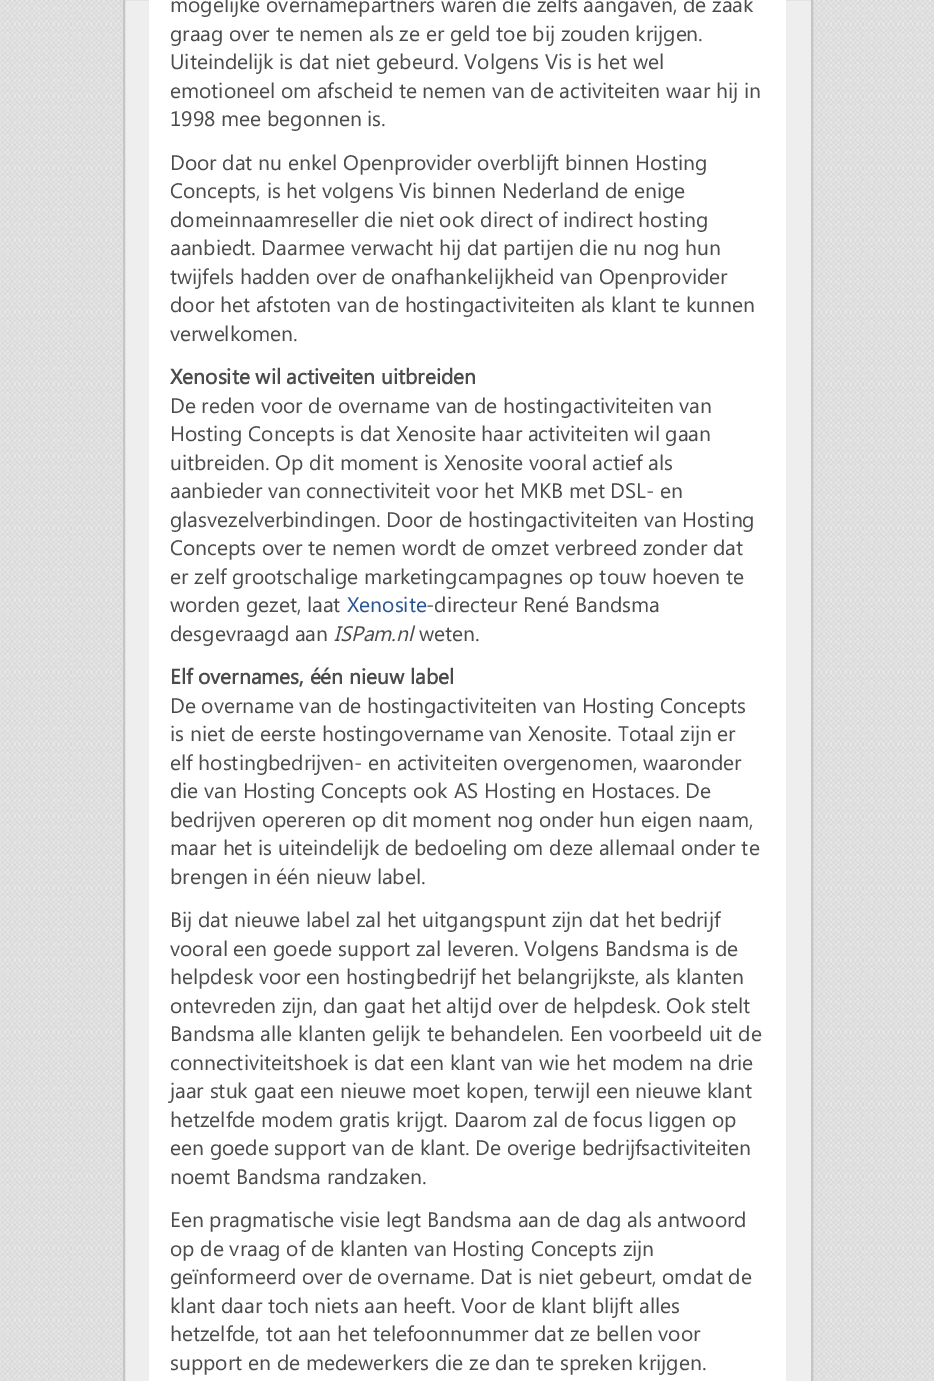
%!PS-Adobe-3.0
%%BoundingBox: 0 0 934 1381
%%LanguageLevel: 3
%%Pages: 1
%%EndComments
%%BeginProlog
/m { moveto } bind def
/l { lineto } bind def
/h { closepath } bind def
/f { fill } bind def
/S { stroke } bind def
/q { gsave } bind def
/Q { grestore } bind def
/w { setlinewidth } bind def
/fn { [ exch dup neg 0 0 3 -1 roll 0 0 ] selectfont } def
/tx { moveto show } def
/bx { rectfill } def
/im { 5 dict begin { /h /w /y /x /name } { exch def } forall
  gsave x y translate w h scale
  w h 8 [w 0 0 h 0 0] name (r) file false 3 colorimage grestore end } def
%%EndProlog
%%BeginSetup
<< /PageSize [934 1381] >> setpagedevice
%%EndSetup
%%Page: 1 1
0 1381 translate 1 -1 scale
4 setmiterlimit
1 setgray
0 0 934 1381 bx
(image0.raw) 0 0 934 1381 im
0.933 setgray
124 -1 m 812 -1 l 812 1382 l 124 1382 l h q f Q
0.773 setgray
2 w
S
1 setgray
149 0 637 1381 bx
/SegoeUI-Regular 21 fn
0.298 setgray
(mogelijke overnamepartners waren die zelfs aangaven, de zaak) 170 12 tx
(graag over te nemen als ze er geld toe bij zouden krijgen.) 170 41 tx
(Uiteindelijk is dat niet gebeurd. Volgens Vis is het wel) 170 69 tx
(emotioneel om afscheid te nemen van de activiteiten waar hij in) 170 98 tx
(1998 mee begonnen is.) 170 126 tx
(Door dat nu enkel Openprovider overblijft binnen Hosting) 170 170 tx
(Concepts, is het volgens Vis binnen Nederland de enige) 170 198 tx
(domeinnaamreseller die niet ook direct of indirect hosting) 170 227 tx
(aanbiedt. Daarmee verwacht hij dat partijen die nu nog hun) 170 255 tx
(twijfels hadden over de onafhankelijkheid van Openprovider) 170 284 tx
(door het afstoten van de hostingactiviteiten als klant te kunnen) 170 312 tx
(verwelkomen.) 170 341 tx
/SegoeUI-Bold 21 fn
(Xenosite wil activeiten uitbreiden) 170 384 tx
/SegoeUI-Regular 21 fn
(De reden voor de overname van de hostingactiviteiten van) 170 413 tx
(Hosting Concepts is dat Xenosite haar activiteiten wil gaan) 170 441 tx
(uitbreiden. Op dit moment is Xenosite vooral actief als) 170 470 tx
(aanbieder van connectiviteit voor het MKB met DSL- en) 170 498 tx
(glasvezelverbindingen. Door de hostingactiviteiten van Hosting) 170 527 tx
(Concepts over te nemen wordt de omzet verbreed zonder dat) 170 555 tx
(er zelf grootschalige marketingcampagnes op touw hoeven te) 170 584 tx
(worden gezet, laat) 170 612 tx
0.153 0.333 0.576 setrgbcolor
(Xenosite) 347 612 tx
0.298 setgray
(-directeur René Bandsma) 426 612 tx
(desgevraagd aan) 170 641 tx
/SegoeUI-Italic 21 fn
(ISPam.nl) 334 641 tx
/SegoeUI-Regular 21 fn
(weten.) 419 641 tx
/SegoeUI-Bold 21 fn
(Elf overnames, één nieuw label) 170 684 tx
/SegoeUI-Regular 21 fn
(De overname van de hostingactiviteiten van Hosting Concepts) 170 713 tx
(is niet de eerste hostingovername van Xenosite. Totaal zijn er) 170 741 tx
(elf hostingbedrijven- en activiteiten overgenomen, waaronder) 170 770 tx
(die van Hosting Concepts ook AS Hosting en Hostaces. De) 170 798 tx
(bedrijven opereren op dit moment nog onder hun eigen naam,) 170 827 tx
(maar het is uiteindelijk de bedoeling om deze allemaal onder te) 170 855 tx
(brengen in één nieuw label.) 170 884 tx
(Bij dat nieuwe label zal het uitgangspunt zijn dat het bedrijf) 170 927 tx
(vooral een goede support zal leveren. Volgens Bandsma is de) 170 956 tx
(helpdesk voor een hostingbedrijf het belangrijkste, als klanten) 170 984 tx
(ontevreden zijn, dan gaat het altijd over de helpdesk. Ook stelt) 170 1013 tx
(Bandsma alle klanten gelijk te behandelen. Een voorbeeld uit de) 170 1041 tx
(connectiviteitshoek is dat een klant van wie het modem na drie) 170 1070 tx
(jaar stuk gaat een nieuwe moet kopen, terwijl een nieuwe klant) 170 1098 tx
(hetzelfde modem gratis krijgt. Daarom zal de focus liggen op) 170 1127 tx
(een goede support van de klant. De overige bedrijfsactiviteiten) 170 1155 tx
(noemt Bandsma randzaken.) 170 1184 tx
(Een pragmatische visie legt Bandsma aan de dag als antwoord) 170 1227 tx
(op de vraag of de klanten van Hosting Concepts zijn) 170 1256 tx
(geïnformeerd over de overname. Dat is niet gebeurt, omdat de) 170 1284 tx
(klant daar toch niets aan heeft. Voor de klant blijft alles) 170 1313 tx
(hetzelfde, tot aan het telefoonnummer dat ze bellen voor) 170 1341 tx
(support en de medewerkers die ze dan te spreken krijgen.) 170 1370 tx
showpage
%%EOF
